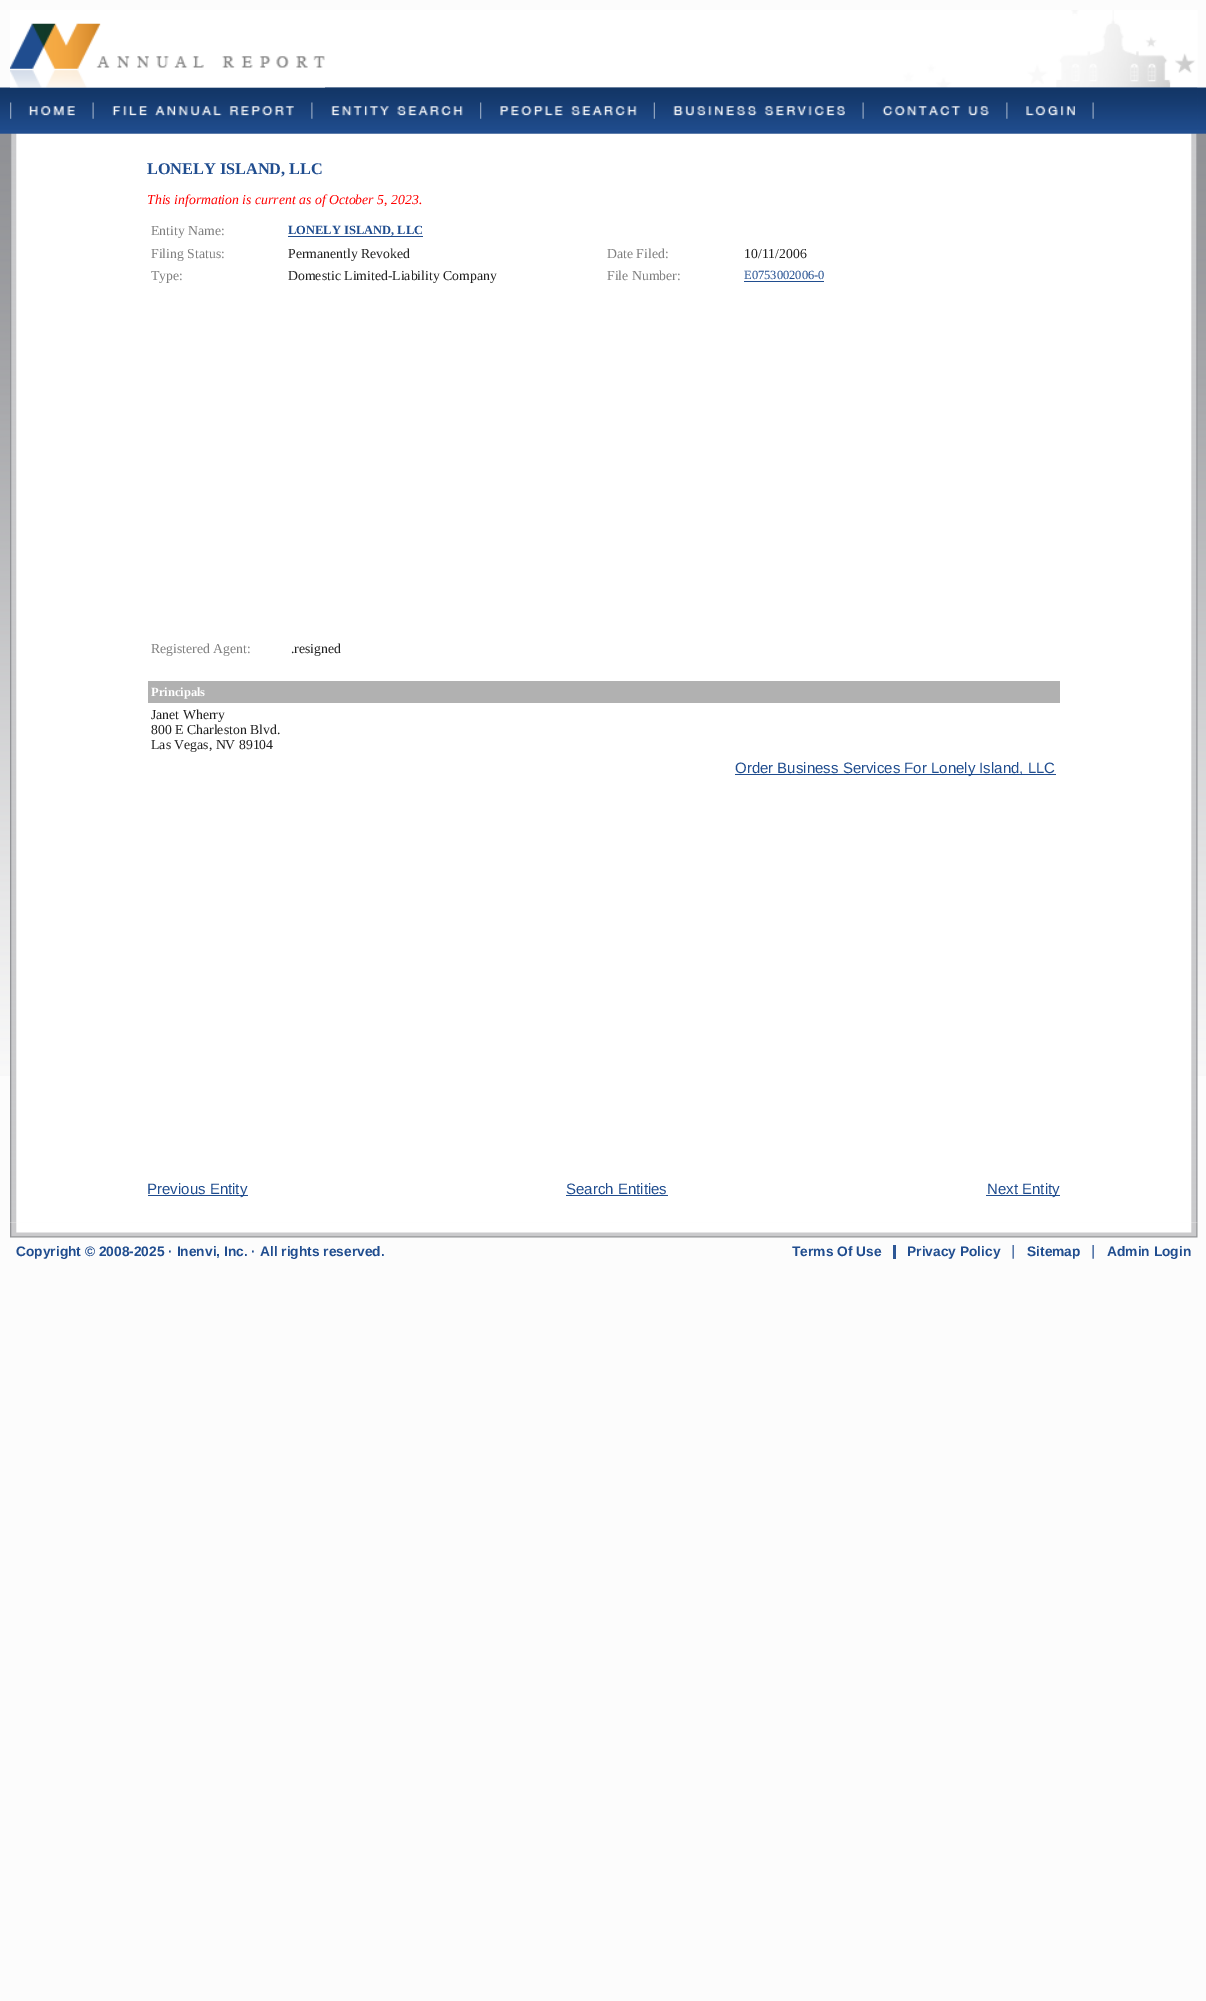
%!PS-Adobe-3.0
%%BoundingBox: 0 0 1206 2001
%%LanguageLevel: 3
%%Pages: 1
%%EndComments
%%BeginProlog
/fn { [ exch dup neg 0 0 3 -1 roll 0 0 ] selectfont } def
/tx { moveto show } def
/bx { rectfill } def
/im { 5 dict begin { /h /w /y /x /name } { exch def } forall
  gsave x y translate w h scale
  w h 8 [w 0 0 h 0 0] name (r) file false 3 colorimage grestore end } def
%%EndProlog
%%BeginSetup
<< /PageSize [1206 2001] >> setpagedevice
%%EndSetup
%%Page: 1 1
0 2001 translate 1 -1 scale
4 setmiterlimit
0.988 setgray
0 0 1206 2001 bx
(image0.raw) 0 87 1206 989 im
(image1.raw) 10 10 1188 78 im
(image3.raw) 10 87 1188 47 im
(image2.raw) 10 23 315 65 im
(image4.raw) 10 102 2 17 im
(image5.raw) 28 106 47 10 im
(image6.raw) 92 102 2 17 im
(image7.raw) 112 106 182 10 im
(image8.raw) 311 102 2 17 im
(image9.raw) 331 106 132 10 im
(image10.raw) 480 102 2 17 im
(image11.raw) 500 106 137 10 im
(image12.raw) 653 102 2 17 im
(image13.raw) 673 106 172 10 im
(image14.raw) 862 102 2 17 im
(image15.raw) 882 106 107 10 im
(image16.raw) 1006 102 2 17 im
(image17.raw) 1026 106 49 10 im
(image14.raw) 1092 102 2 17 im
(image18.raw) 10 133 1188 1090 im
/LiberationSerif-Bold 16.25 fn
0.125 0.302 0.561 setrgbcolor
(LONELY ISLAND, LLC) 147 174 tx
/LiberationSerif-Italic 13.75 fn
1 0 0 setrgbcolor
(This information is current as of October 5, 2023.) 147 204 tx
/LiberationSerif-Regular 13.75 fn
0.502 setgray
(Entity Name:) 151 235 tx
/LiberationSerif-Bold 12.5 fn
0.125 0.302 0.561 setrgbcolor
(LONELY ISLAND, LLC) 288 234 tx
288 236 135 1 bx
/LiberationSerif-Regular 13.75 fn
0.502 setgray
(Filing Status:) 151 258 tx
0.133 setgray
(Permanently Revoked) 288 258 tx
0.502 setgray
(Date Filed:) 607 258 tx
0.133 setgray
(10/11/2006) 744 258 tx
0.502 setgray
(Type:) 151 280 tx
0.133 setgray
(Domestic Limited-Liability Company) 288 280 tx
0.502 setgray
(File Number:) 607 280 tx
/LiberationSerif-Regular 12.5 fn
0.125 0.302 0.561 setrgbcolor
(E0753002006-0) 744 279 tx
744 281 80 1 bx
/LiberationSerif-Regular 13.75 fn
0.502 setgray
(Registered Agent:) 151 653 tx
0.133 setgray
(.resigned) 291 653 tx
0.694 setgray
148 681 912 22 bx
/LiberationSerif-Bold 12.5 fn
1 setgray
(Principals) 151 696 tx
/LiberationSerif-Regular 13.75 fn
0.133 setgray
(Janet Wherry) 151 719 tx
(800 E Charleston Blvd.) 151 734 tx
(Las Vegas, NV 89104) 151 749 tx
0.125 0.302 0.561 setrgbcolor
735 774 321 1 bx
/LiberationSans-Regular 15 fn
(Order Business Services For Lonely Island, LLC) 735 773 tx
148 1195 100 1 bx
(Previous Entity) 147 1194 tx
(Search Entities) 566 1194 tx
566 1195 102 1 bx
986 1195 74 1 bx
(Next Entity) 987 1194 tx
(image19.raw) 10 1222 1188 16 im
/LiberationSans-Bold 13.75 fn
(Copyright © 2008-2025 · Inenvi, Inc. · All rights reserved.) 16 1256 tx
(Terms Of Use) 792 1256 tx
0.176 0.341 0.588 setrgbcolor
893 1245 3 14 bx
0.125 0.302 0.561 setrgbcolor
(Privacy Policy) 907 1256 tx
(image20.raw) 1012 1245 2 14 im
(Sitemap) 1027 1256 tx
(image21.raw) 1092 1245 2 14 im
(Admin Login) 1107 1256 tx
showpage
%%EOF
